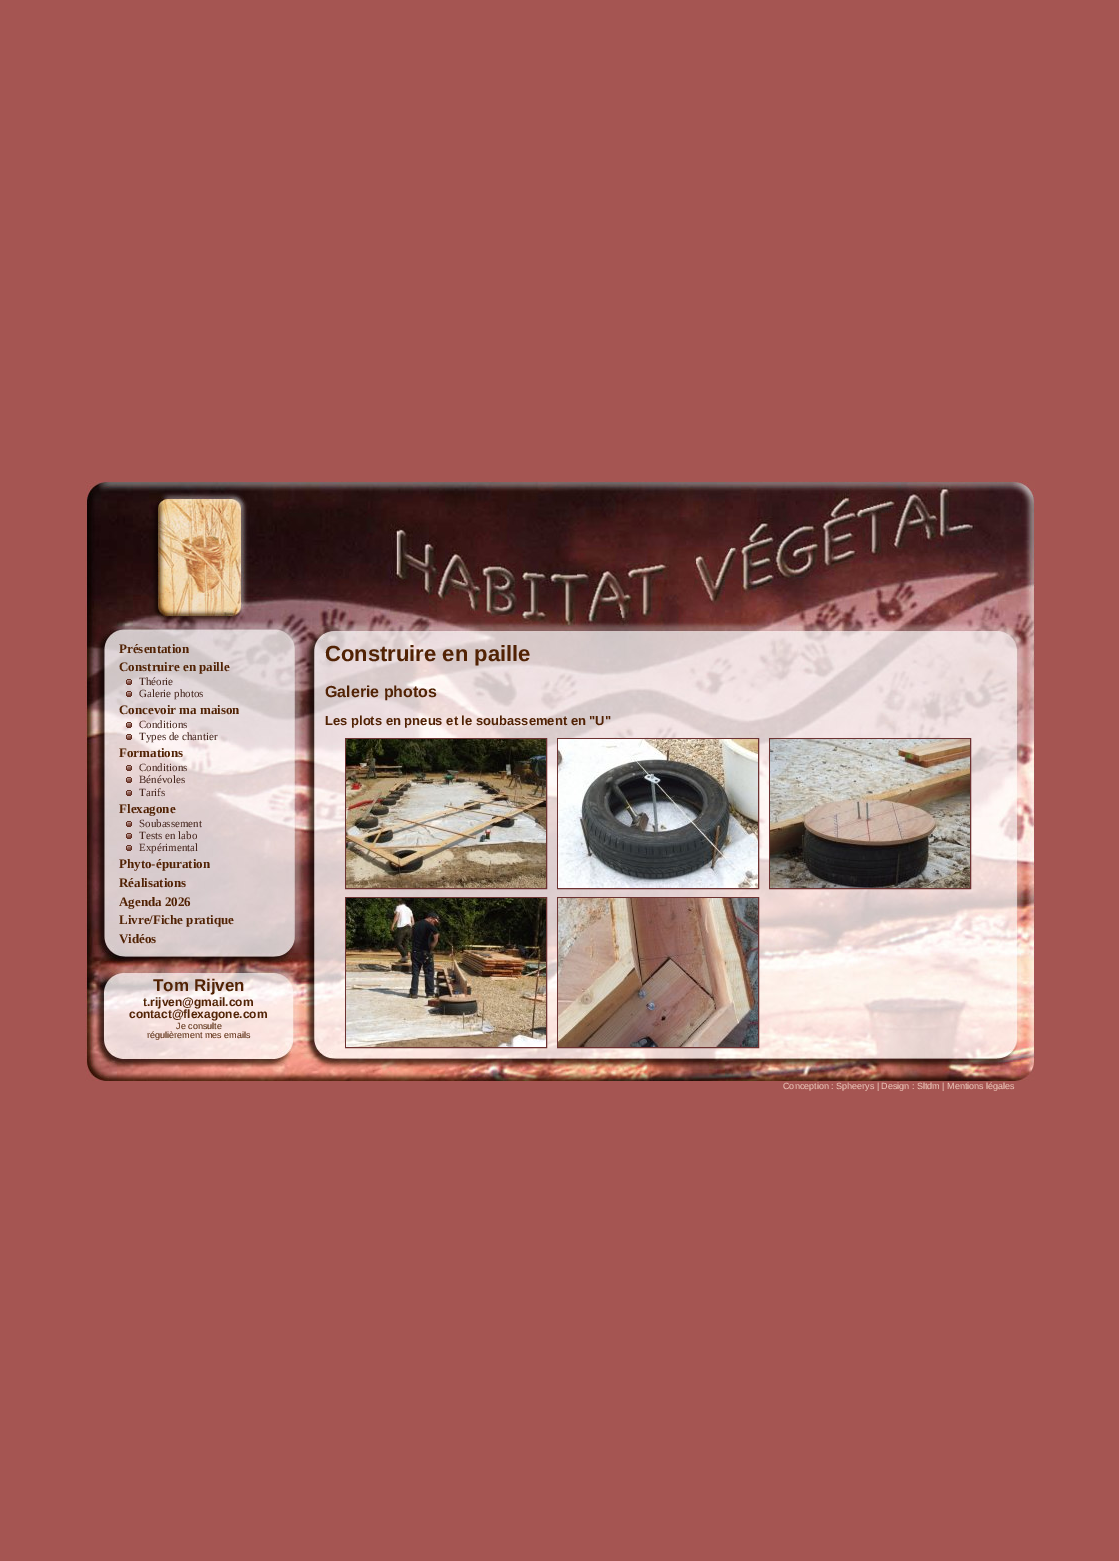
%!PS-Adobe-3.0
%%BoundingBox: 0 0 1119 1561
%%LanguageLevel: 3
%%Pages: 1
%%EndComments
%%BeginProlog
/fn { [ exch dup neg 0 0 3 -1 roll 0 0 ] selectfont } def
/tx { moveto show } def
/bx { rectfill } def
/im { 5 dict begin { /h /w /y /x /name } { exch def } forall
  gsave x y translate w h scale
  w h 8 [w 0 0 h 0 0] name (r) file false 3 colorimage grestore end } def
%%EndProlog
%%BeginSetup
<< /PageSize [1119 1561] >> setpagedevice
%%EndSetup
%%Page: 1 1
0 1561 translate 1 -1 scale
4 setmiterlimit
0.647 0.333 0.322 setrgbcolor
0 0 1119 1561 bx
(image0.raw) 85 481 950 600 im
/LiberationSerif-Bold 13 fn
0.318 0.133 0.016 setrgbcolor
(Présentation) 119 653 tx
(Construire en paille) 119 671 tx
(image1.raw) 126 679 6 6 im
/LiberationSerif-Regular 11 fn
0.271 0.149 0.118 setrgbcolor
(Théorie) 139 685 tx
(image2.raw) 126 691 6 6 im
(Galerie photos) 139 697 tx
/LiberationSerif-Bold 13 fn
0.318 0.133 0.016 setrgbcolor
(Concevoir ma maison) 119 714 tx
(image3.raw) 126 722 6 6 im
/LiberationSerif-Regular 11 fn
0.271 0.149 0.118 setrgbcolor
(Conditions) 139 728 tx
(image4.raw) 126 734 6 6 im
(Types de chantier) 139 740 tx
/LiberationSerif-Bold 13 fn
0.318 0.133 0.016 setrgbcolor
(Formations) 119 757 tx
(image5.raw) 126 765 6 6 im
/LiberationSerif-Regular 11 fn
0.271 0.149 0.118 setrgbcolor
(Conditions) 139 771 tx
(image6.raw) 126 777 6 6 im
(Bénévoles) 139 783 tx
(image7.raw) 126 790 6 6 im
(Tarifs) 139 796 tx
/LiberationSerif-Bold 13 fn
0.318 0.133 0.016 setrgbcolor
(Flexagone) 119 813 tx
(image8.raw) 126 821 6 6 im
/LiberationSerif-Regular 11 fn
0.271 0.149 0.118 setrgbcolor
(Soubassement) 139 827 tx
(image9.raw) 126 833 6 6 im
(Tests en labo) 139 839 tx
(image10.raw) 126 845 6 6 im
(Expérimental) 139 851 tx
/LiberationSerif-Bold 13 fn
0.318 0.133 0.016 setrgbcolor
(Phyto-épuration) 119 868 tx
(Réalisations) 119 887 tx
(Agenda 2026) 119 906 tx
(Livre/Fiche pratique) 119 924 tx
(Vidéos) 119 943 tx
/LiberationSans-Bold 22 fn
(Construire en paille) 325 661 tx
/LiberationSans-Bold 16 fn
(Galerie photos) 325 697 tx
/LiberationSans-Bold 13 fn
(Les plots en pneus et le soubassement en "U") 325 725 tx
0.427 0.192 0.192 setrgbcolor
345.5 738.5 201 150 rectstroke
(image11.raw) 346 739 200 149 im
557.5 738.5 201 150 rectstroke
(image12.raw) 558 739 200 149 im
769.5 738.5 201 150 rectstroke
(image13.raw) 770 739 200 149 im
345.5 897.5 201 150 rectstroke
(image14.raw) 346 898 200 149 im
557.5 897.5 201 150 rectstroke
(image15.raw) 558 898 200 149 im
/LiberationSans-Bold 17 fn
0.318 0.133 0.016 setrgbcolor
(Tom Rijven) 153 991 tx
/LiberationSans-Bold 12 fn
(t.rijven@gmail.com) 143 1006 tx
(contact@flexagone.com) 129 1018 tx
/LiberationSans-Regular 9 fn
(Je consulte) 176 1029 tx
(régulièrement mes emails) 147 1038 tx
0.937 0.796 0.741 setrgbcolor
(Conception : Spheerys | Design : Sltdm | Mentions légales) 783 1089 tx
showpage
%%EOF
